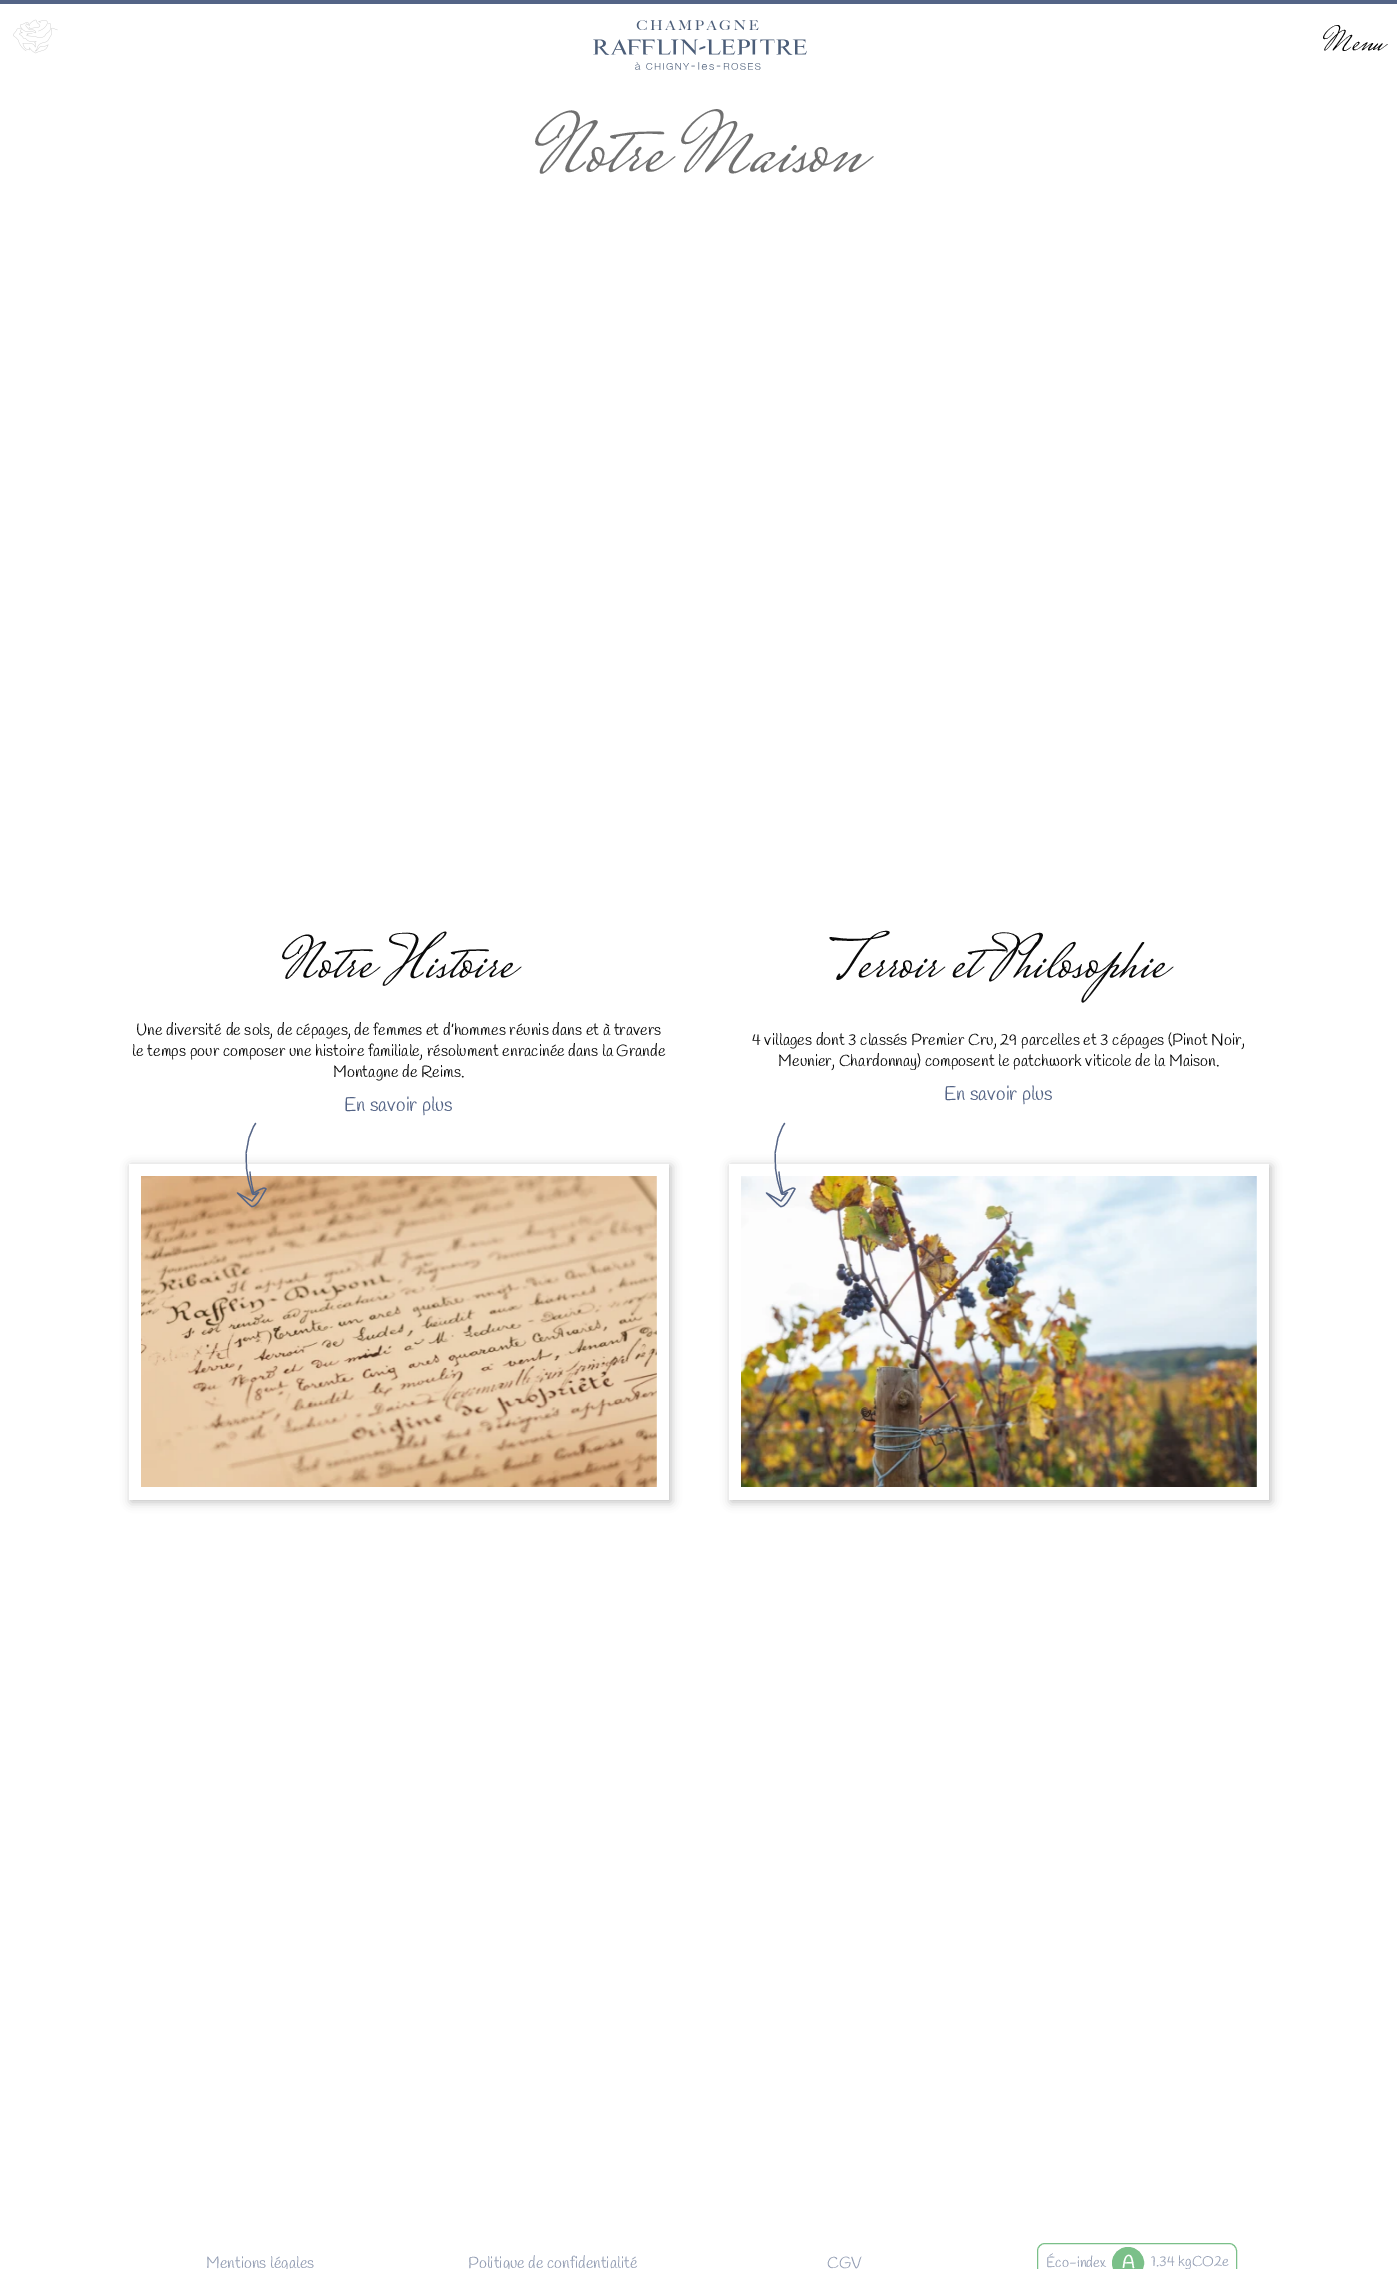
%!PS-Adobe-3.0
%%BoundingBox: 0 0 1397 2269
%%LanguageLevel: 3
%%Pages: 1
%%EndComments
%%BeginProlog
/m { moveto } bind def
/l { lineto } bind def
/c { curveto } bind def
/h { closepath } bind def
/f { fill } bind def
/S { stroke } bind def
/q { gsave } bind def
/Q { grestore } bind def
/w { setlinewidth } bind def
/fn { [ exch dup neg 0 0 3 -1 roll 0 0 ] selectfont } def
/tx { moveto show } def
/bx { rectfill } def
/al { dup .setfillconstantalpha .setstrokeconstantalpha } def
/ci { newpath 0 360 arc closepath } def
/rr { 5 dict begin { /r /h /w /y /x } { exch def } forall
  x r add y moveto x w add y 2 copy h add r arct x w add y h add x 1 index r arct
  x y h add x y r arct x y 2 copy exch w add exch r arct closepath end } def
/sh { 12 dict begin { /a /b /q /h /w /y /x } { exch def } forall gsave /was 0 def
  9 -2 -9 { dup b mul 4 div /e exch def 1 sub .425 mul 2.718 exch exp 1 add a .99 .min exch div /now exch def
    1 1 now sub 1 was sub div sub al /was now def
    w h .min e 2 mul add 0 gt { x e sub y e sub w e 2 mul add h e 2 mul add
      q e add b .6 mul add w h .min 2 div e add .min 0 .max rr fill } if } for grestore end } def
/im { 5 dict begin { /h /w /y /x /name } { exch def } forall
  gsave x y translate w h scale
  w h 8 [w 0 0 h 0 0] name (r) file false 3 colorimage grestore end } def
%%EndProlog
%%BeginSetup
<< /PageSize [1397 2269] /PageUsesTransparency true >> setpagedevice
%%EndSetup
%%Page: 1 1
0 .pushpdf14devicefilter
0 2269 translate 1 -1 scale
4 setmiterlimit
1 setgray
0 0 1397 2269 bx
0.329 0.392 0.525 setrgbcolor
0 0 1397 4 bx
(image0.raw) 13 19 45 35 im
(image1.raw) 593 20 214 50 im
/MrsSaintDelafield-Regular 35 fn
0 setgray
(Menu) 1323 50 tx
/MrsSaintDelafield-Regular 86.5 fn
0.439 setgray
(Notre Maison) 535 171 tx
/MrsSaintDelafield-Regular 60.75 fn
0.039 setgray
(Notre Histoire) 282 977 tx
/Handlee-Regular 16.15 fn
(Une diversité de sols, de cépages, de femmes et d’hommes réunis dans et à travers) 136 1035 tx
(le temps pour composer une histoire familiale, résolument enracinée dans la Grande) 132 1056 tx
(Montagne de Reims.) 333 1077 tx
/Handlee-Regular 19.5 fn
0.329 0.392 0.525 setrgbcolor
(En savoir plus) 344 1111 tx
q
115 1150 m 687 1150 l 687 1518 l 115 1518 l h 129 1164 m 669 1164 l 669 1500 l 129 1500 l h eoclip newpath
0 setgray
131 1166 540 336 0 5 0.25 sh
Q
(image2.raw) 141 1176 516 311 im
1.2 w
1 setlinecap
1 setlinejoin
255.5 1124 m 255.5 1123.5 l 244 1142 244 1163.5 249.5 1184 c 252 1192.5 l 253 1196.5 256 1193.5 258.5 1192.5 c 252 1201 l 237.5 1193 l 248 1203.5 l 251.5 1206.5 l 256 1207.5 260.5 1198.5 262 1196 c 266 1189 l 265 1185.5 256 1192 253.5 1193 c 254 1192.5 251 1185 250 1172 c S
/MrsSaintDelafield-Regular 60.75 fn
0.039 setgray
(Terroir et Philosophie) 832 977 tx
/Handlee-Regular 16.15 fn
(4 villages dont 3 classés Premier Cru, 29 parcelles et 3 cépages \(Pinot Noir,) 752 1045 tx
(Meunier, Chardonnay\) composent le patchwork viticole de la Maison.) 778 1066 tx
/Handlee-Regular 19.5 fn
0.329 0.392 0.525 setrgbcolor
(En savoir plus) 944 1100 tx
q
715 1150 m 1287 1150 l 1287 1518 l 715 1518 l h 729 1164 m 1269 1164 l 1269 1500 l 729 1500 l h eoclip newpath
0 setgray
731 1166 540 336 0 5 0.25 sh
Q
(image3.raw) 741 1176 516 311 im
784.5 1124 m 784.5 1123.5 l 773 1142 773 1163.5 778.5 1184 c 781 1192.5 l 782 1196.5 785 1193.5 787.5 1192.5 c 781 1201 l 766.5 1193 l 777 1203.5 l 780.5 1206.5 l 785 1207.5 789.5 1198.5 791 1196 c 795 1189 l 794 1185.5 785 1192 782.5 1193 c 783 1192.5 780 1185 779 1172 c S
/Handlee-Regular 16 fn
0.576 0.616 0.702 setrgbcolor
(Mentions légales) 206 2268 tx
(Politique de confidentialité) 468 2268 tx
(CGV) 827 2268 tx
0.482 0.753 0.537 setrgbcolor
1 w
0 setlinecap
0 setlinejoin
1037.5 2243.5 199 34 7.5 rr S
/Handlee-Regular 14.5 fn
0.576 0.616 0.702 setrgbcolor
(Éco-index) 1046 2267 tx
0.482 0.753 0.537 setrgbcolor
1128 2263 15.5 ci q f Q
S
/Handlee-Bold 18 fn
1 setgray
(A) 1122 2268 tx
/Handlee-Regular 14.5 fn
0.576 0.616 0.702 setrgbcolor
(1.34 kgCO2e) 1151 2266 tx
.poppdf14devicefilter showpage
%%EOF
